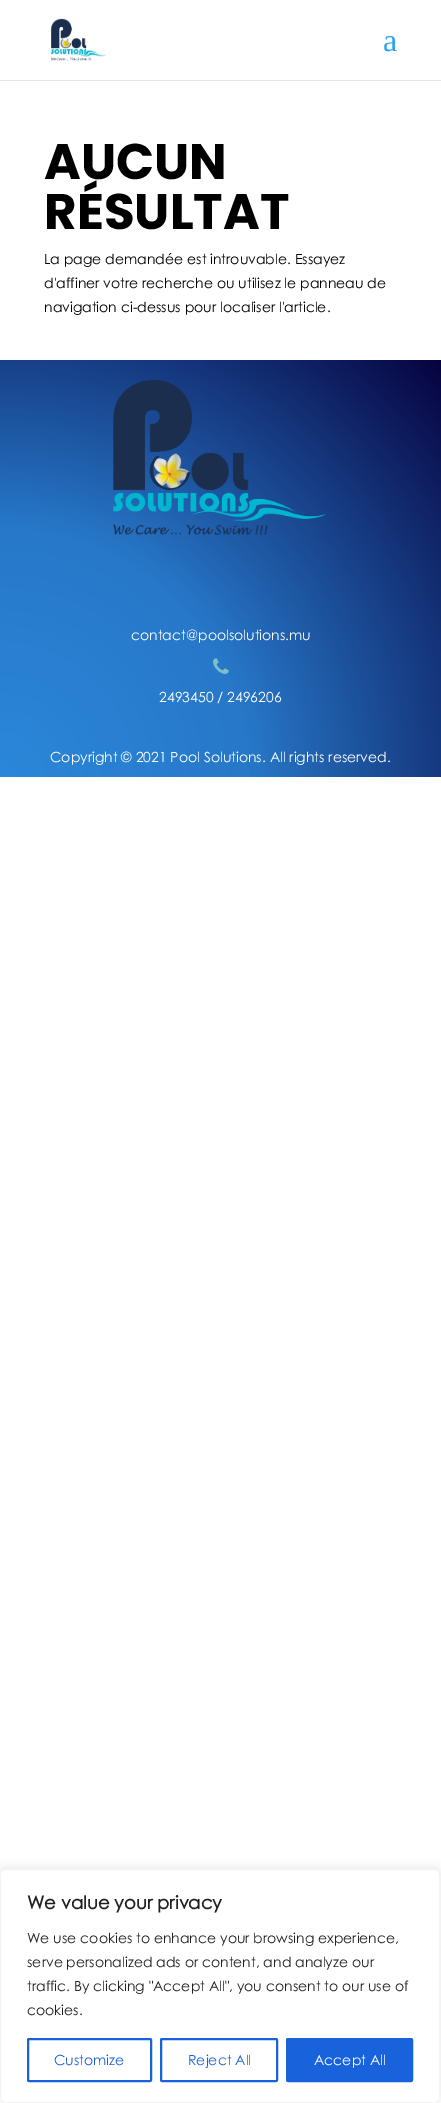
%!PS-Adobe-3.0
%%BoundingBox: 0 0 441 2103
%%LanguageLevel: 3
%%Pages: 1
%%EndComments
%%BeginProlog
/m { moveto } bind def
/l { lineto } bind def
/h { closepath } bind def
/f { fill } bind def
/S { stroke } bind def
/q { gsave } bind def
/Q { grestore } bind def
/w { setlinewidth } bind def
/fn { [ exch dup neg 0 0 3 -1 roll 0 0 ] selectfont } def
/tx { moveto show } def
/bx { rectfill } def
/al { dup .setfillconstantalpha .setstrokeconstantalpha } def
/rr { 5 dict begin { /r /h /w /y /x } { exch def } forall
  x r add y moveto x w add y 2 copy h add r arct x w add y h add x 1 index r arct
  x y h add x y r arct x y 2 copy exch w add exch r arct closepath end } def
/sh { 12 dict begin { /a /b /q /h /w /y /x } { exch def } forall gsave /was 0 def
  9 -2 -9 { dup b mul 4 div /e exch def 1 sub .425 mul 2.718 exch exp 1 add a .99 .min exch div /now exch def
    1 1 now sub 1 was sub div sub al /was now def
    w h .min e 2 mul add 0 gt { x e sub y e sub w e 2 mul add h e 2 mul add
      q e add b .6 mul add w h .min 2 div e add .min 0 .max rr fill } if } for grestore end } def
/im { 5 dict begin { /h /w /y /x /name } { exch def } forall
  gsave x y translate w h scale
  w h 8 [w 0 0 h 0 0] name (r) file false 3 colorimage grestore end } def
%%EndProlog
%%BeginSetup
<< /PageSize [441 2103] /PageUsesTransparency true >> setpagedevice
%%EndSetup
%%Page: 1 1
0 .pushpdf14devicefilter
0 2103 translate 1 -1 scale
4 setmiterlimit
1 setgray
0 0 441 2103 bx
0.902 setgray
0 80 441 1 bx
(image0.raw) 51 18 55 43 im
/LiberationSerif-Regular 32 fn
0.18 0.639 0.949 setrgbcolor
(a) 383 51 tx
/Poppins-Bold 50 fn
0 setgray
(AUCUN) 44 179 tx
(RÉSULTAT) 44 229 tx
/CenturyGothic-Regular 14 fn
(La page demandée est introuvable. Essayez) 44 264 tx
(d'affiner votre recherche ou utilisez le panneau de) 44 288 tx
(navigation ci-dessus pour localiser l'article.) 44 312 tx
q 0 360 m 441 360 l 441 777 l 0 777 l h clip newpath 0 777 translate 607 607 scale
<< /ShadingType 3 /ColorSpace /DeviceRGB /Coords [0 0 0 0 0 1] /Extend [true true] /Function << /FunctionType 3 /Domain [0 1] /Functions [<< /FunctionType 2 /Domain [0 1] /C0 [0.169 0.529 0.855] /C1 [0.153 0.471 0.788] /N 1 >> << /FunctionType 2 /Domain [0 1] /C0 [0.153 0.471 0.788] /C1 [0.027 0.008 0.247] /N 1 >>] /Bounds [0.41] /Encode [0 1 0 1] >> >> shfill Q
(image1.raw) 113 380 214 155 im
1 setgray
(contact@poolsolutions.mu) 131 640 tx
(image2.raw) 213 658 16 16 im
(2493450 / 2496206) 159 702 tx
(Copyright © 2021 Pool Solutions. All rights reserved.) 50 762 tx
0.675 0.671 0.671 setrgbcolor
0 1868 440 234 6 5 0.3 sh
1 setgray
0.5 1869.5 439 233 5.5 rr q f Q
0.957 setgray
S
/CenturyGothic-Bold 18 fn
0.129 setgray
(We value your privacy) 27 1909 tx
/CenturyGothic-Regular 14 fn
(We use cookies to enhance your browsing experience,) 27 1943 tx
(serve personalized ads or content, and analyze our) 27 1967 tx
(traffic. By clicking "Accept All", you consent to our use of) 27 1991 tx
(cookies.) 27 2015 tx
0.094 0.388 0.863 setrgbcolor
2 w
28 2039 123 42 1 rr S
(Customize) 54 2065 tx
161 2039 116 42 1 rr S
(Reject All) 188 2065 tx
287 2039 125 42 1 rr q f Q
S
1 setgray
(Accept All) 314 2065 tx
.poppdf14devicefilter showpage
%%EOF
